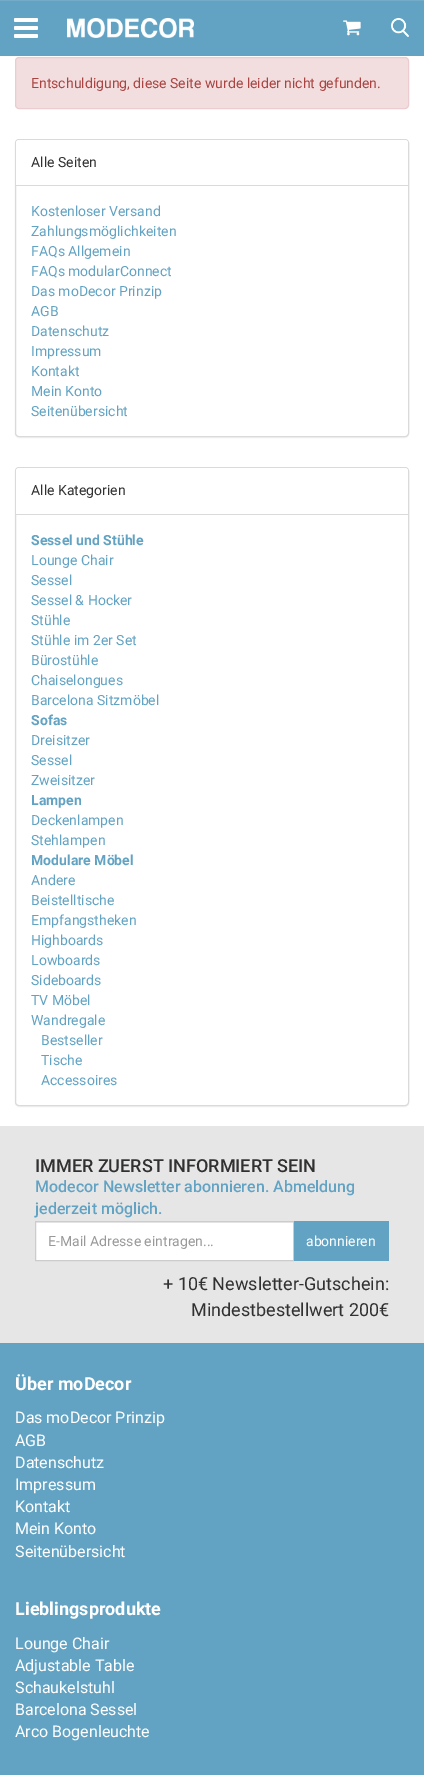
%!PS-Adobe-3.0
%%BoundingBox: 0 0 424 1775
%%LanguageLevel: 3
%%Pages: 1
%%EndComments
%%BeginProlog
/m { moveto } bind def
/l { lineto } bind def
/c { curveto } bind def
/h { closepath } bind def
/f { fill } bind def
/S { stroke } bind def
/q { gsave } bind def
/Q { grestore } bind def
/fn { [ exch dup neg 0 0 3 -1 roll 0 0 ] selectfont } def
/tx { moveto show } def
/bx { rectfill } def
/al { dup .setfillconstantalpha .setstrokeconstantalpha } def
/rr { 5 dict begin { /r /h /w /y /x } { exch def } forall
  x r add y moveto x w add y 2 copy h add r arct x w add y h add x 1 index r arct
  x y h add x y r arct x y 2 copy exch w add exch r arct closepath end } def
/sh { 12 dict begin { /a /b /q /h /w /y /x } { exch def } forall gsave /was 0 def
  9 -2 -9 { dup b mul 4 div /e exch def 1 sub .425 mul 2.718 exch exp 1 add a .99 .min exch div /now exch def
    1 1 now sub 1 was sub div sub al /was now def
    w h .min e 2 mul add 0 gt { x e sub y e sub w e 2 mul add h e 2 mul add
      q e add b .6 mul add w h .min 2 div e add .min 0 .max rr fill } if } for grestore end } def
/im { 5 dict begin { /h /w /y /x /name } { exch def } forall
  gsave x y translate w h scale
  w h 8 [w 0 0 h 0 0] name (r) file false 3 colorimage grestore end } def
%%EndProlog
%%BeginSetup
<< /PageSize [424 1775] /PageUsesTransparency true >> setpagedevice
%%EndSetup
%%Page: 1 1
0 .pushpdf14devicefilter
0 1775 translate 1 -1 scale
4 setmiterlimit
1 setgray
0 0 424 1775 bx
0.384 0.639 0.765 setrgbcolor
0 1 424 55 bx
0.447 0.675 0.788 setrgbcolor
0 0 424 1 bx
(image0.raw) 14 18 24 20 im
(image1.raw) 67 18 127 20 im
(image2.raw) 343 20 18 16 im
(image3.raw) 391 18 18 19 im
0.949 0.871 0.871 setrgbcolor
15.5 57.5 393 51 3.5 rr q f Q
0.922 0.8 0.82 setrgbcolor
S
/Roboto-Regular 14 fn
0.663 0.267 0.259 setrgbcolor
(Entschuldigung, diese Seite wurde leider nicht gefunden.) 31 88 tx
0 setgray
15 140 394 298 4 0.5 0.05 sh
1 setgray
15.5 139.5 393 297 3.5 rr q f Q
0.855 setgray
S
1 setgray
19 140 m 405 140 l 406.5 140 408 141.5 408 143 c 408 186 l 16 186 l 16 143 l 16 141.5 17.5 140 19 140 c h f
0.855 setgray
16 185 392 1 bx
0.192 setgray
(Alle Seiten) 31 167 tx
0.384 0.639 0.765 setrgbcolor
(Kostenloser Versand) 31 216 tx
(Zahlungsmöglichkeiten) 31 236 tx
(FAQs Allgemein) 31 256 tx
(FAQs modularConnect) 31 276 tx
(Das moDecor Prinzip) 31 296 tx
(AGB) 31 316 tx
(Datenschutz) 31 336 tx
(Impressum) 31 356 tx
(Kontakt) 31 376 tx
(Mein Konto) 31 396 tx
(Seitenübersicht) 31 416 tx
0 setgray
15 468 394 639 4 0.5 0.05 sh
1 setgray
15.5 467.5 393 638 3.5 rr q f Q
0.855 setgray
S
1 setgray
19 468 m 405 468 l 406.5 468 408 469.5 408 471 c 408 515 l 16 515 l 16 471 l 16 469.5 17.5 468 19 468 c h f
0.855 setgray
16 514 392 1 bx
0.192 setgray
(Alle Kategorien) 31 495 tx
/Roboto-Bold 14 fn
0.384 0.639 0.765 setrgbcolor
(Sessel und Stühle) 31 545 tx
/Roboto-Regular 14 fn
(Lounge Chair) 31 565 tx
(Sessel) 31 585 tx
(Sessel & Hocker) 31 605 tx
(Stühle) 31 625 tx
(Stühle im 2er Set) 31 645 tx
(Bürostühle) 31 665 tx
(Chaiselongues) 31 685 tx
(Barcelona Sitzmöbel) 31 705 tx
/Roboto-Bold 14 fn
(Sofas) 31 725 tx
/Roboto-Regular 14 fn
(Dreisitzer) 31 745 tx
(Sessel) 31 765 tx
(Zweisitzer) 31 785 tx
/Roboto-Bold 14 fn
(Lampen) 31 805 tx
/Roboto-Regular 14 fn
(Deckenlampen) 31 825 tx
(Stehlampen) 31 845 tx
/Roboto-Bold 14 fn
(Modulare Möbel) 31 865 tx
/Roboto-Regular 14 fn
(Andere) 31 885 tx
(Beistelltische) 31 905 tx
(Empfangstheken) 31 925 tx
(Highboards) 31 945 tx
(Lowboards) 31 965 tx
(Sideboards) 31 985 tx
(TV Möbel) 31 1005 tx
(Wandregale) 31 1025 tx
(Bestseller) 41 1045 tx
(Tische) 41 1065 tx
(Accessoires) 41 1085 tx
0.902 setgray
0 1126 424 217 bx
/Roboto-Medium 18 fn
0.192 setgray
(IMMER ZUERST INFORMIERT SEIN) 35 1172 tx
/Roboto-Medium 16 fn
0.384 0.639 0.765 setrgbcolor
(Modecor Newsletter abonnieren. Abmeldung) 35 1192 tx
(jederzeit möglich.) 35 1214 tx
1 setgray
36 1223 257 37 bx
0.925 setgray
36 1222 257 1 bx
0.8 setgray
35.5 1221.5 258 39 rectstroke
/Roboto-Regular 14 fn
0.6 setgray
(E-Mail Adresse eintragen...) 48 1246 tx
0.384 0.639 0.765 setrgbcolor
294 1221 95 40 bx
1 setgray
(abonnieren) 306 1246 tx
/Roboto-Regular 18 fn
0.192 setgray
(+ 10€ Newsletter-Gutschein:) 163 1290 tx
(Mindestbestellwert 200€) 191 1316 tx
0.384 0.639 0.765 setrgbcolor
0 1343 424 432 bx
/Roboto-Bold 18 fn
1 setgray
(Über moDecor) 15 1390 tx
/Roboto-Regular 16 fn
(Das moDecor Prinzip) 15 1423 tx
(AGB) 15 1446 tx
(Datenschutz) 15 1468 tx
(Impressum) 15 1490 tx
(Kontakt) 15 1512 tx
(Mein Konto) 15 1534 tx
(Seitenübersicht) 15 1557 tx
/Roboto-Bold 18 fn
(Lieblingsprodukte) 15 1615 tx
/Roboto-Regular 16 fn
(Lounge Chair) 15 1649 tx
(Adjustable Table) 15 1671 tx
(Schaukelstuhl) 15 1693 tx
(Barcelona Sessel) 15 1715 tx
(Arco Bogenleuchte) 15 1737 tx
.poppdf14devicefilter showpage
%%EOF
